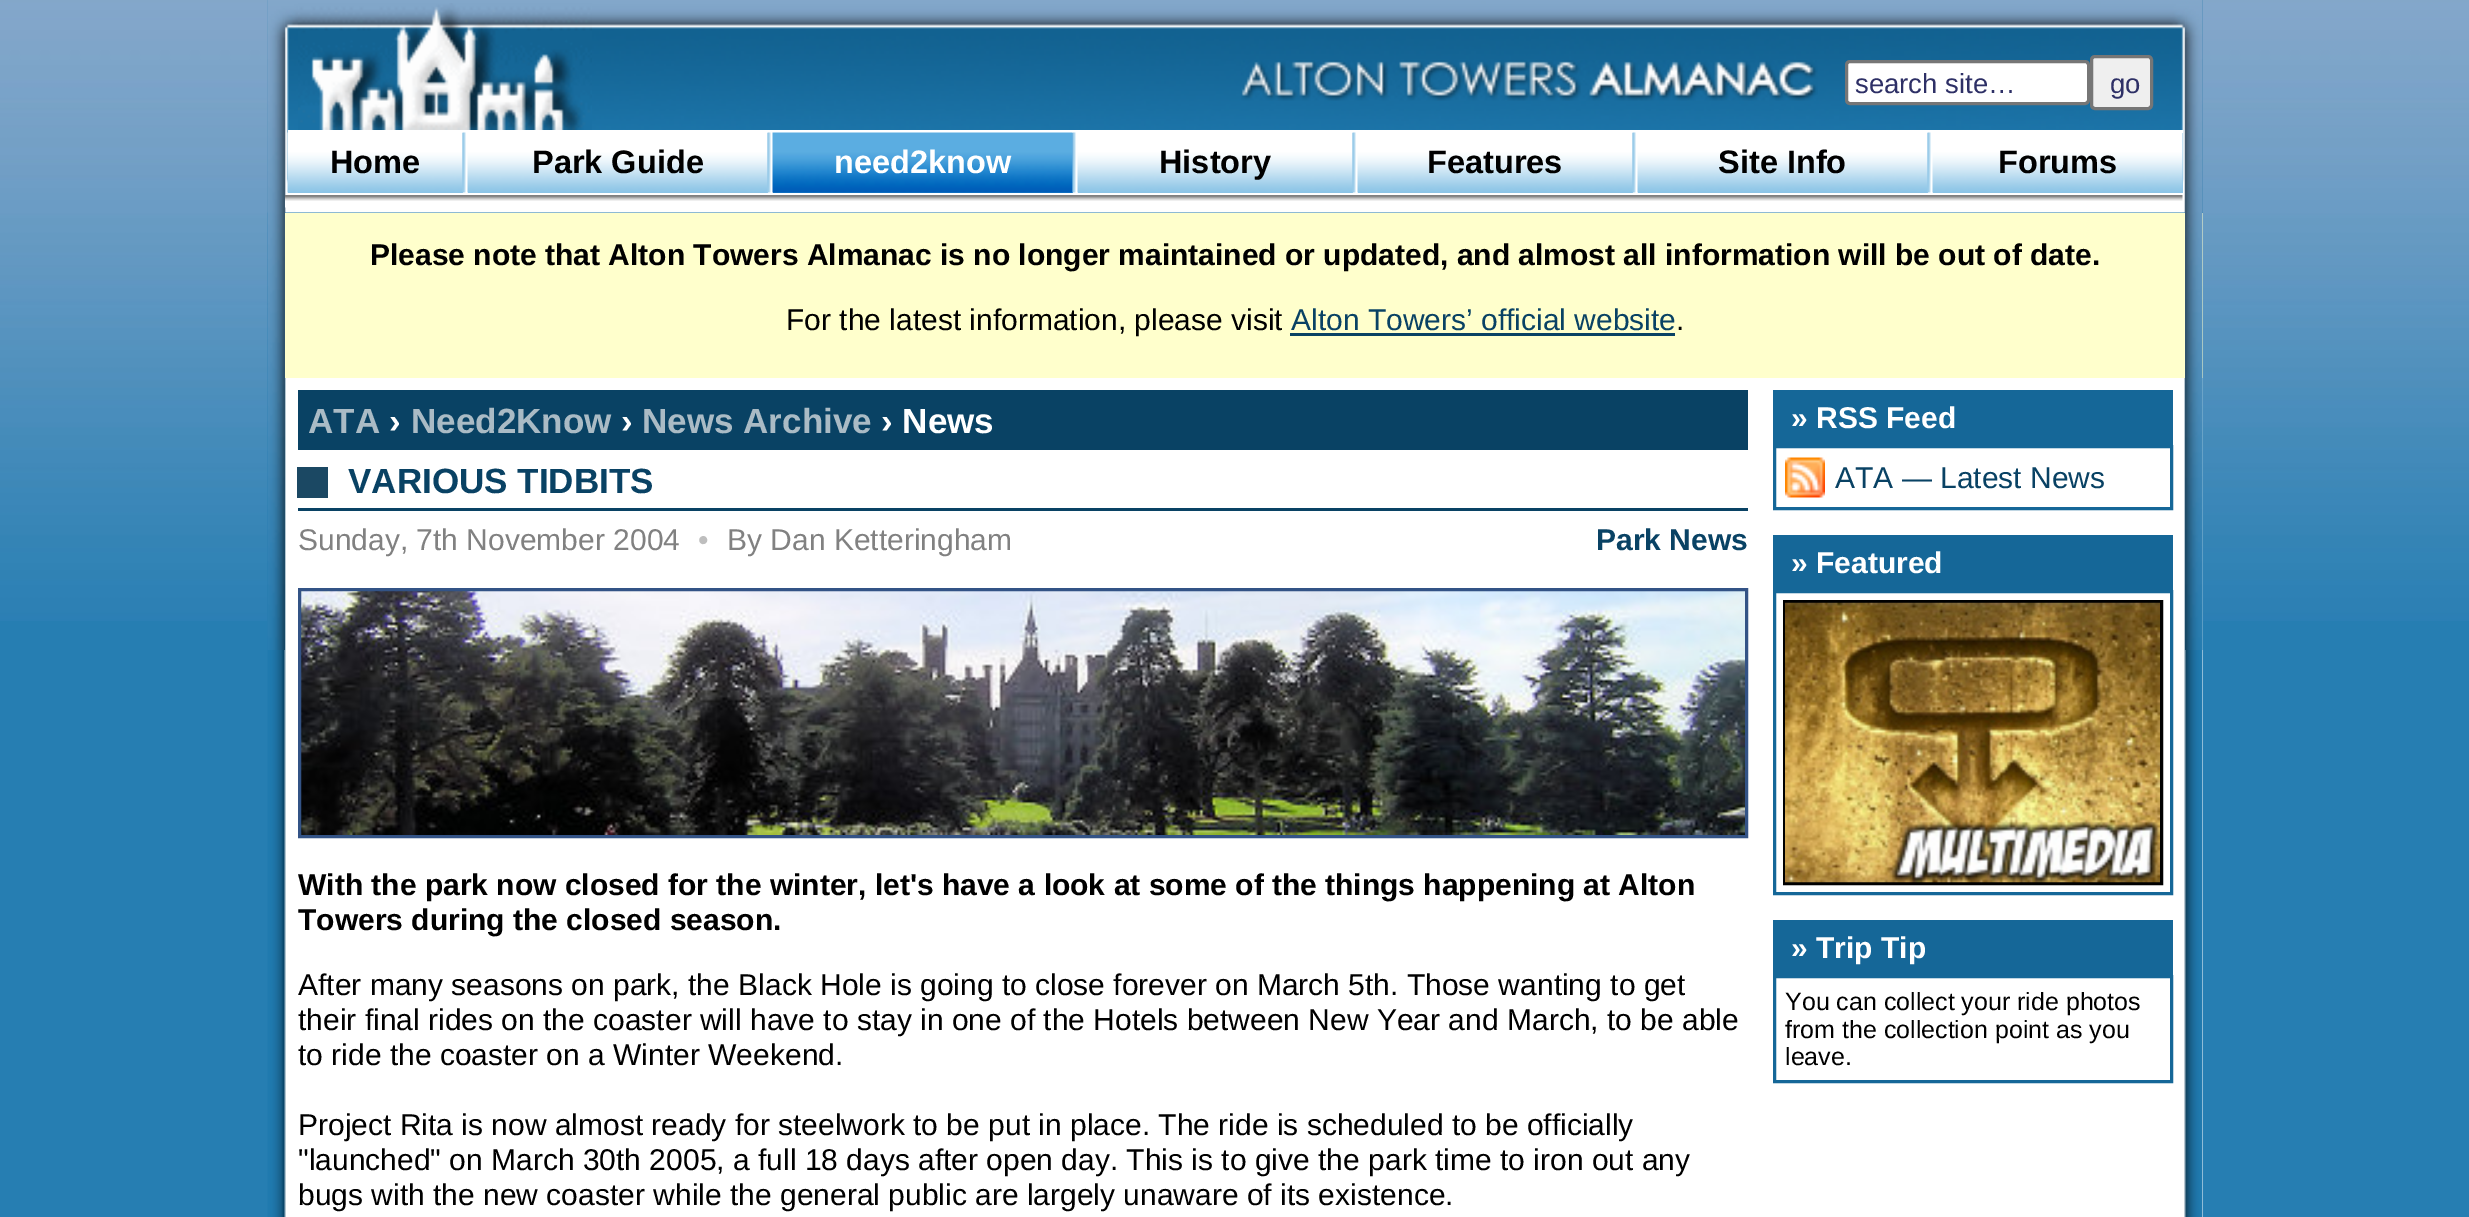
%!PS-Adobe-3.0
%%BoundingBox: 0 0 2469 1217
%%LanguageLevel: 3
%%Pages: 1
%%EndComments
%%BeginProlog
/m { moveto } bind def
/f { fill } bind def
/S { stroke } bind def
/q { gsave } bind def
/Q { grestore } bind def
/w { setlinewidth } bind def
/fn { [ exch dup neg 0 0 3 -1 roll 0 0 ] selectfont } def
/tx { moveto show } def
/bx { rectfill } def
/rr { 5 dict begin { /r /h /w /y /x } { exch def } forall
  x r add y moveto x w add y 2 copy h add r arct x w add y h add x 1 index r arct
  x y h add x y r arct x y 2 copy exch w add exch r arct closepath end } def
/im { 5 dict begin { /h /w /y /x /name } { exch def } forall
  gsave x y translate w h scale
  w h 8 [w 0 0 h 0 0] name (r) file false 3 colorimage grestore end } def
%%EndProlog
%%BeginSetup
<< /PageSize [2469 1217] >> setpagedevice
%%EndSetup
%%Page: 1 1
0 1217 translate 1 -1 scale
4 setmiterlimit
0.149 0.494 0.698 setrgbcolor
0 0 2469 1217 bx
(image0.raw) 0 0 2469 621 im
1 setgray
2202 378 1 839 bx
(image1.raw) 267 0 1936 1217 im
0.114 0.455 0.659 setrgbcolor
285 0 1918 213 bx
(image3.raw) 267 0 1936 213 im
(image2.raw) 267 0 18 650 im
(image4.raw) 298 3 294 127 im
(image5.raw) 1241 60 577 41 im
1 setgray
1846.5 61.5 242 42 3.5 rr q f Q
0.463 setgray
3 w
S
/LiberationSans-Regular 27.5 fn
0.18 0.188 0.4 setrgbcolor
(search site…) 1855 93 tx
0.937 setgray
2091.5 56.5 60 52 3.5 rr q f Q
0.463 setgray
S
0.18 0.188 0.4 setrgbcolor
(go) 2110 93 tx
1 setgray
288 130 1895 3 bx
463 133 1470 51 bx
0.557 0.773 0.906 setrgbcolor
288 133 175 60 bx
(image6.raw) 287 132 176 61 im
/LiberationSans-Bold 32.5 fn
0 setgray
(Home) 330 173 tx
(image7.raw) 462 132 4 61 im
0.557 0.773 0.906 setrgbcolor
468 133 300 60 bx
(image8.raw) 467 133 301 60 im
0 setgray
(Park Guide) 532 173 tx
(image9.raw) 767 132 4 61 im
0.11 0.502 0.8 setrgbcolor
773 133 300 60 bx
(image10.raw) 772 132 301 61 im
1 setgray
(need2know) 834 173 tx
(image11.raw) 1072 132 4 61 im
0.557 0.773 0.906 setrgbcolor
1078 133 275 60 bx
(image12.raw) 1077 133 276 60 im
0 setgray
(History) 1159 173 tx
(image13.raw) 1352 132 4 61 im
0.557 0.773 0.906 setrgbcolor
1358 133 275 60 bx
(image14.raw) 1357 133 276 60 im
0 setgray
(Features) 1427 173 tx
(image13.raw) 1632 132 4 61 im
0.557 0.773 0.906 setrgbcolor
1638 133 290 60 bx
(image15.raw) 1637 133 291 60 im
0 setgray
(Site Info) 1718 173 tx
(image9.raw) 1927 132 4 61 im
0.557 0.773 0.906 setrgbcolor
1933 133 250 60 bx
(image16.raw) 1932 133 251 60 im
0 setgray
(Forums) 1998 173 tx
(image17.raw) 285 195 1898 13 im
1 1 0.8 setrgbcolor
285 213 1918 165 bx
(image18.raw) 2185 0 18 650 im
/LiberationSans-Bold 30 fn
0 setgray
(Please note that Alton Towers Almanac is no longer maintained or updated, and almost all information will be out of date.) 370 265 tx
/LiberationSans-Regular 30 fn
(For the latest information, please visit) 786 330 tx
0.035 0.259 0.392 setrgbcolor
(Alton Towers’ official website) 1291 330 tx
1290 333 385 3 bx
0 setgray
(.) 1676 330 tx
0.035 0.259 0.392 setrgbcolor
298 390 1450 60 bx
/LiberationSans-Bold 35 fn
0.667 0.733 0.773 setrgbcolor
(ATA) 308 433 tx
1 setgray
(›) 389 433 tx
0.667 0.733 0.773 setrgbcolor
(Need2Know) 411 433 tx
1 setgray
(›) 621 433 tx
0.667 0.733 0.773 setrgbcolor
(News Archive) 642 433 tx
1 setgray
(› News) 881 433 tx
0.106 0.282 0.388 setrgbcolor
297 467 31 31 bx
0.035 0.259 0.392 setrgbcolor
298 508 1450 3 bx
(VARIOUS TIDBITS) 348 493 tx
/LiberationSans-Regular 30 fn
0.506 setgray
(Sunday, 7th November 2004) 298 550 tx
0.745 setgray
698 550 m 10 0 (•) ashow
0.506 setgray
(By Dan Ketteringham) 727 550 tx
/LiberationSans-Bold 30 fn
0.035 0.259 0.392 setrgbcolor
(Park News) 1596 550 tx
(image19.raw) 301 591 1444 244 im
0.2 0.325 0.525 setrgbcolor
299.5 589.5 1447 247 rectstroke
0 setgray
(With the park now closed for the winter, let's have a look at some of the things happening at Alton) 298 895 tx
(Towers during the closed season.) 298 930 tx
/LiberationSans-Regular 30 fn
(After many seasons on park, the Black Hole is going to close forever on March 5th. Those wanting to get) 298 995 tx
(their final rides on the coaster will have to stay in one of the Hotels between New Year and March, to be able) 298 1030 tx
(to ride the coaster on a Winter Weekend.) 298 1065 tx
(Project Rita is now almost ready for steelwork to be put in place. The ride is scheduled to be officially) 298 1135 tx
("launched" on March 30th 2005, a full 18 days after open day. This is to give the park time to iron out any) 298 1170 tx
(bugs with the new coaster while the general public are largely unaware of its existence.) 298 1205 tx
0.082 0.404 0.596 setrgbcolor
1773 390 400 55 bx
/LiberationSans-Bold 30 fn
1 setgray
(» RSS Feed) 1791 428 tx
0.082 0.404 0.596 setrgbcolor
1774.5 446.5 397 62 rectstroke
(image20.raw) 1785 457 40 41 im
/LiberationSans-Regular 30 fn
0.035 0.259 0.392 setrgbcolor
(ATA — Latest News) 1835 488 tx
0.082 0.404 0.596 setrgbcolor
1773 535 400 55 bx
/LiberationSans-Bold 30 fn
1 setgray
(» Featured) 1791 573 tx
0.082 0.404 0.596 setrgbcolor
1774.5 591.5 397 302 rectstroke
0 setgray
1784.5 601.5 377 282 rectstroke
(image21.raw) 1785 602 375 281 im
0.082 0.404 0.596 setrgbcolor
1773 920 400 55 bx
1 setgray
(» Trip Tip) 1791 958 tx
0.082 0.404 0.596 setrgbcolor
1774.5 976.5 397 105 rectstroke
/LiberationSans-Regular 25 fn
0 setgray
(You can collect your ride photos) 1785 1010 tx
(from the collection point as you) 1785 1038 tx
(leave.) 1785 1065 tx
showpage
%%EOF
